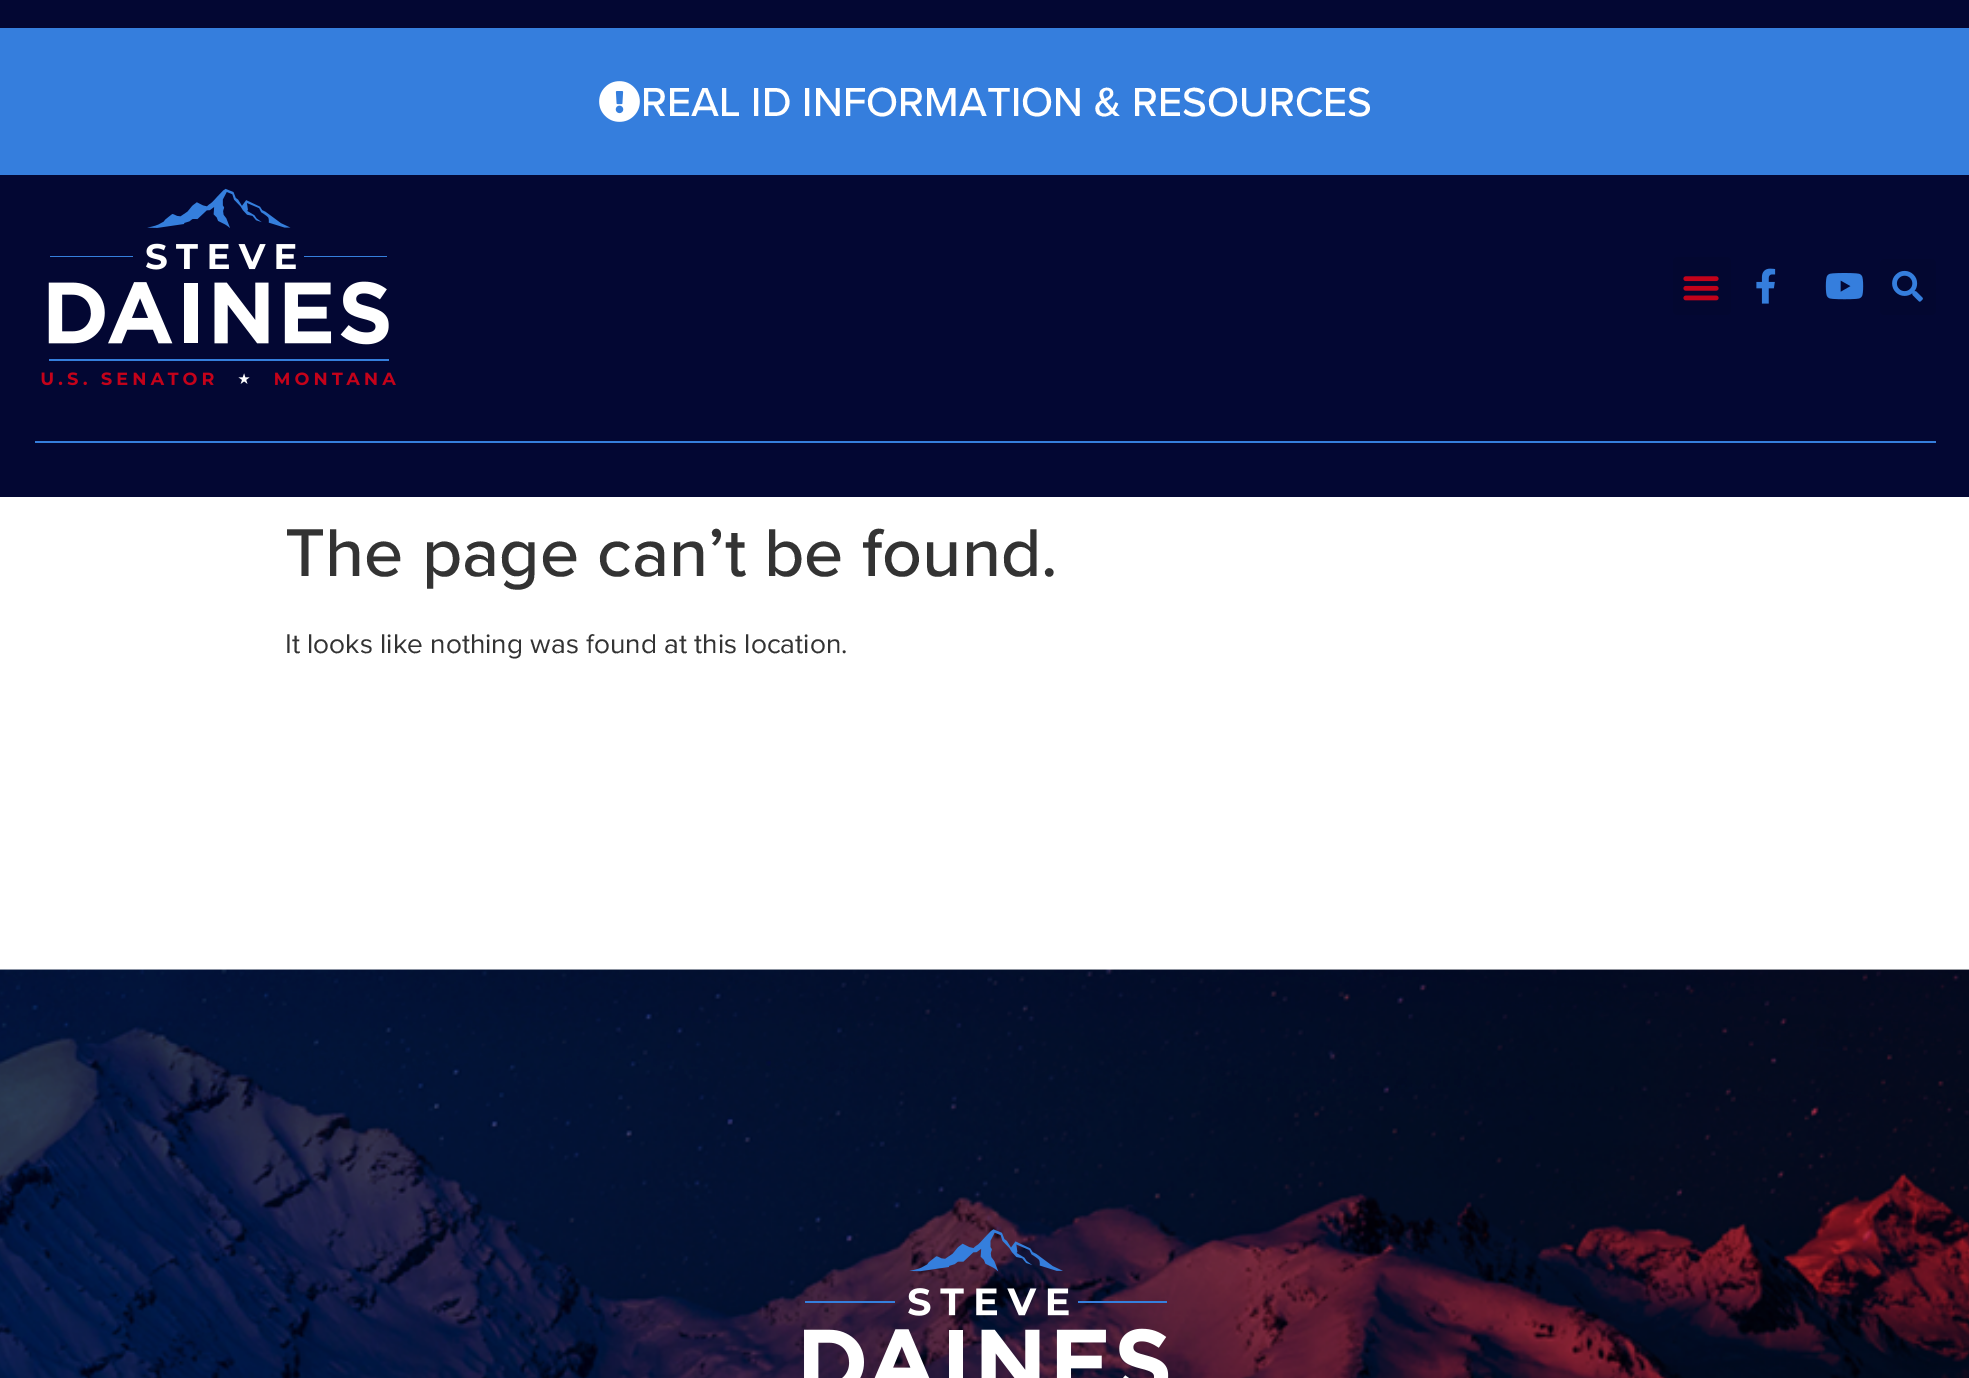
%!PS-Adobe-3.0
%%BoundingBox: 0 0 1969 1378
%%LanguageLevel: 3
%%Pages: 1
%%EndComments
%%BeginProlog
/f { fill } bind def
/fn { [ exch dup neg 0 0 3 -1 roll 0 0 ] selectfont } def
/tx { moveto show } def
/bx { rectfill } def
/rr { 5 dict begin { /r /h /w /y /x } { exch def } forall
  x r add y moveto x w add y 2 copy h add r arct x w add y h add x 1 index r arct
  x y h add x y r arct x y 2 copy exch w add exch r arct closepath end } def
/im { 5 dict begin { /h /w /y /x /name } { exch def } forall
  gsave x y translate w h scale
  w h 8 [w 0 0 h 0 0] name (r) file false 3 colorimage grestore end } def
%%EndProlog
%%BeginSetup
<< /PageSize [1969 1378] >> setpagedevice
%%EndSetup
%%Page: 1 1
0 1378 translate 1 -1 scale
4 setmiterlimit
1 setgray
0 0 1969 1378 bx
0.012 0.027 0.2 setrgbcolor
0 0 1969 497 bx
0.208 0.494 0.867 setrgbcolor
0 28 1969 147 bx
(image0.raw) 599 81 41 41 im
/ProximaNova-Medium 42 fn
1 setgray
(REAL ID INFORMATION & RESOURCES) 641 116 tx
0.208 0.494 0.867 setrgbcolor
35 441 1901 2 bx
(image1.raw) 41 188 355 198 im
0.012 0.027 0.188 setrgbcolor
1673 257 58 58 5 rr f
(image2.raw) 1683 276 36 25 im
(image3.raw) 1756 268 20 36 im
(image4.raw) 1825 273 39 27 im
1880 259 56 56 5 rr f
(image5.raw) 1892 270 31 32 im
/ProximaNova-Medium 70 fn
0.2 setgray
(The page can’t be found.) 285 576 tx
/ProximaNova-Regular 28 fn
(It looks like nothing was found at this location.) 285 653 tx
(image6.raw) 0 969 1969 409 im
(image7.raw) 804 1229 365 149 im
showpage
%%EOF
